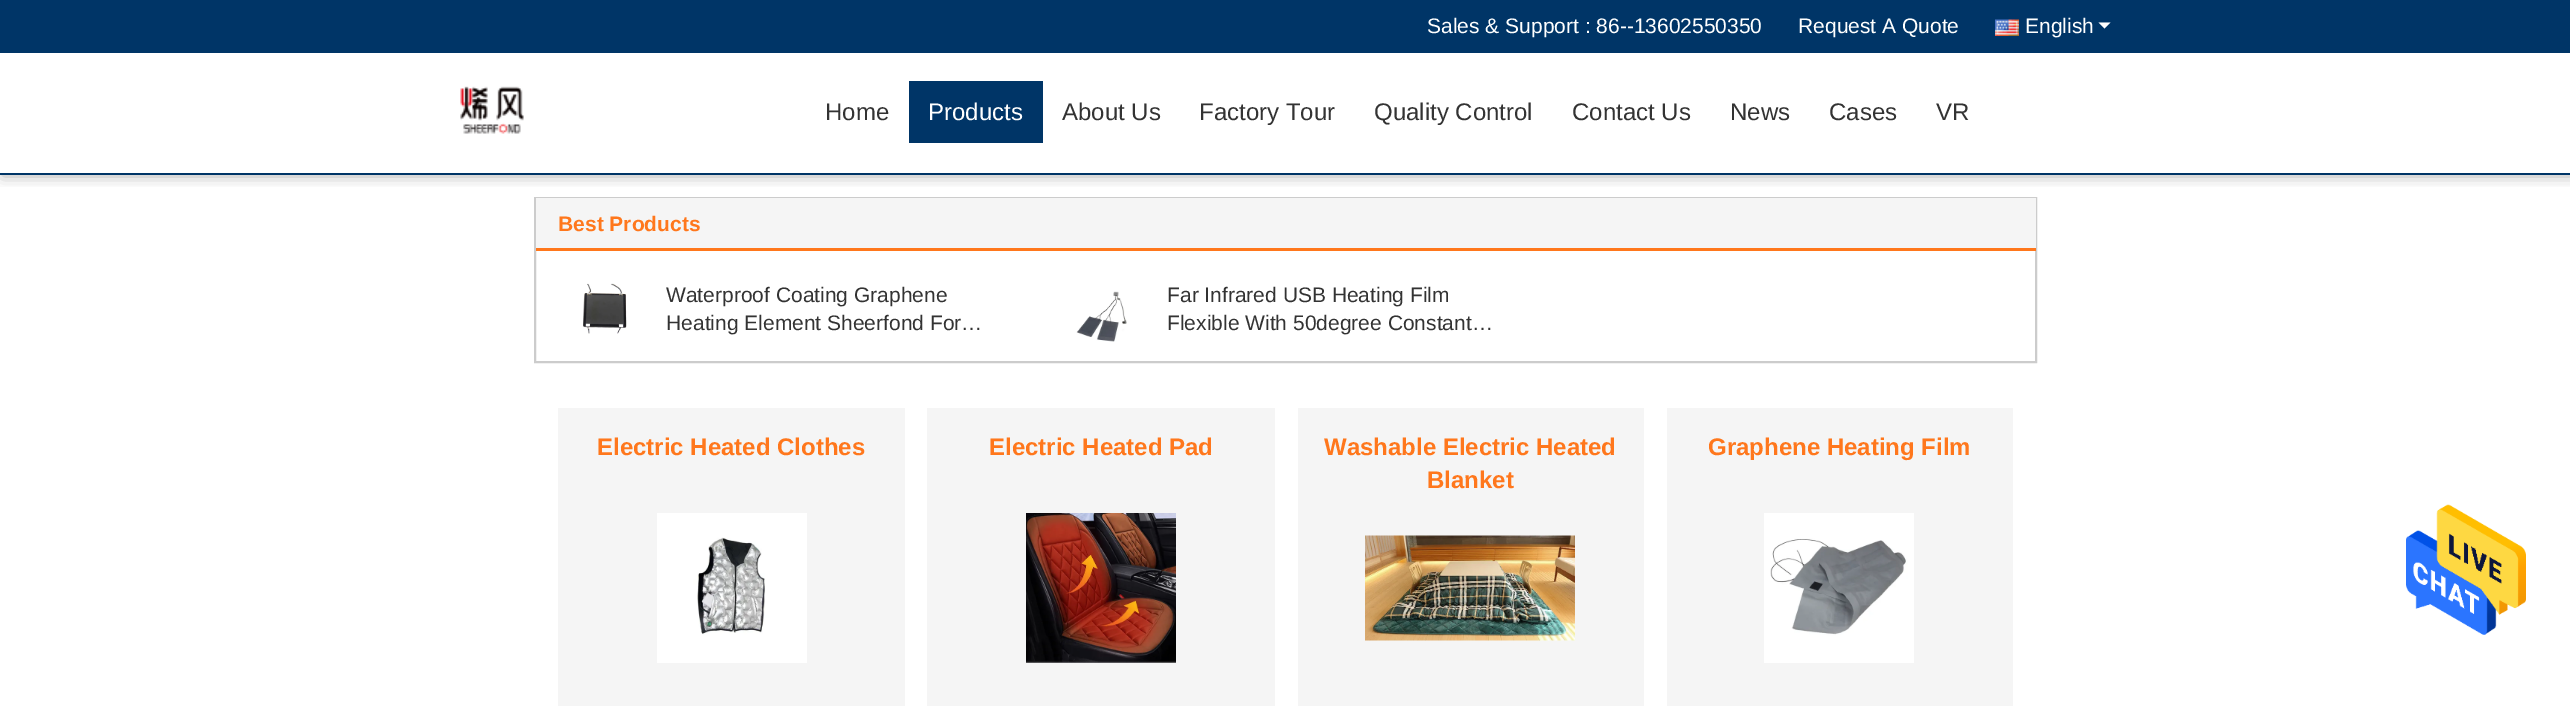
%!PS-Adobe-3.0
%%BoundingBox: 0 0 2570 706
%%LanguageLevel: 3
%%Pages: 1
%%EndComments
%%BeginProlog
/m { moveto } bind def
/l { lineto } bind def
/h { closepath } bind def
/f { fill } bind def
/q { gsave } bind def
/Q { grestore } bind def
/w { setlinewidth } bind def
/fn { [ exch dup neg 0 0 3 -1 roll 0 0 ] selectfont } def
/tx { moveto show } def
/bx { rectfill } def
/al { dup .setfillconstantalpha .setstrokeconstantalpha } def
/rr { 5 dict begin { /r /h /w /y /x } { exch def } forall
  x r add y moveto x w add y 2 copy h add r arct x w add y h add x 1 index r arct
  x y h add x y r arct x y 2 copy exch w add exch r arct closepath end } def
/sh { 12 dict begin { /a /b /q /h /w /y /x } { exch def } forall gsave /was 0 def
  9 -2 -9 { dup b mul 4 div /e exch def 1 sub .425 mul 2.718 exch exp 1 add a .99 .min exch div /now exch def
    1 1 now sub 1 was sub div sub al /was now def
    w h .min e 2 mul add 0 gt { x e sub y e sub w e 2 mul add h e 2 mul add
      q e add b .6 mul add w h .min 2 div e add .min 0 .max rr fill } if } for grestore end } def
/im { 5 dict begin { /h /w /y /x /name } { exch def } forall
  gsave x y translate w h scale
  w h 8 [w 0 0 h 0 0] name (r) file false 3 colorimage grestore end } def
%%EndProlog
%%BeginSetup
<< /PageSize [2570 706] /PageUsesTransparency true >> setpagedevice
%%EndSetup
%%Page: 1 1
0 .pushpdf14devicefilter
0 706 translate 1 -1 scale
4 setmiterlimit
1 setgray
0 0 2570 706 bx
q
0 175 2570 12 rectclip
0 setgray
2 2 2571 174 0 7.5 0.3 sh
Q
0 0.208 0.404 setrgbcolor
0 173 2570 2 bx
0 0 2570 53 bx
/LiberationSans-Regular 21 fn
1 setgray
(Sales & Support : 86--13602550350) 1427 33 tx
(Request A Quote) 1798 33 tx
(image0.raw) 1995 19 24 17 im
(English) 2025 33 tx
2098.5 22.5 m 2110.5 22.5 l 2104.5 28.5 l h f
(image1.raw) 460 86 64 48 im
/LiberationSans-Regular 24 fn
0.2 setgray
(Home) 825 120 tx
0 0.208 0.404 setrgbcolor
909 81 134 62 bx
1 setgray
(Products) 928 120 tx
0.2 setgray
(About Us) 1062 120 tx
(Factory Tour) 1199 120 tx
(Quality Control) 1374 120 tx
(Contact Us) 1572 120 tx
(News) 1730 120 tx
(Cases) 1829 120 tx
(VR) 1936 120 tx
0.8 setgray
2 w
535 198 1501 164 rectstroke
0.961 setgray
536 198 1500 50 bx
1 0.467 0.11 setrgbcolor
536 248 1500 3 bx
/LiberationSans-Bold 21 fn
(Best Products) 558 231 tx
(image2.raw) 583 283 44 51 im
/LiberationSans-Regular 21 fn
0.2 setgray
(Waterproof Coating Graphene) 666 302 tx
(Heating Element Sheerfond For…) 666 330 tx
(image3.raw) 1076 291 51 51 im
(Far Infrared USB Heating Film) 1167 302 tx
(Flexible With 50degree Constant…) 1167 330 tx
0.961 setgray
558 408 347 298 bx
/LiberationSans-Bold 24 fn
1 0.467 0.11 setrgbcolor
(Electric Heated Clothes) 597 455 tx
(image4.raw) 657 513 150 150 im
0.961 setgray
927 408 348 298 bx
1 0.467 0.11 setrgbcolor
(Electric Heated Pad) 989 455 tx
(image5.raw) 1026 513 150 150 im
0.961 setgray
1298 408 346 298 bx
1 0.467 0.11 setrgbcolor
(Washable Electric Heated) 1324 455 tx
(Blanket) 1427 488 tx
(image6.raw) 1365 535 210 106 im
0.961 setgray
1667 408 346 298 bx
1 0.467 0.11 setrgbcolor
(Graphene Heating Film) 1708 455 tx
(image7.raw) 1764 513 150 150 im
(image8.raw) 2406 504 120 131 im
.poppdf14devicefilter showpage
%%EOF
